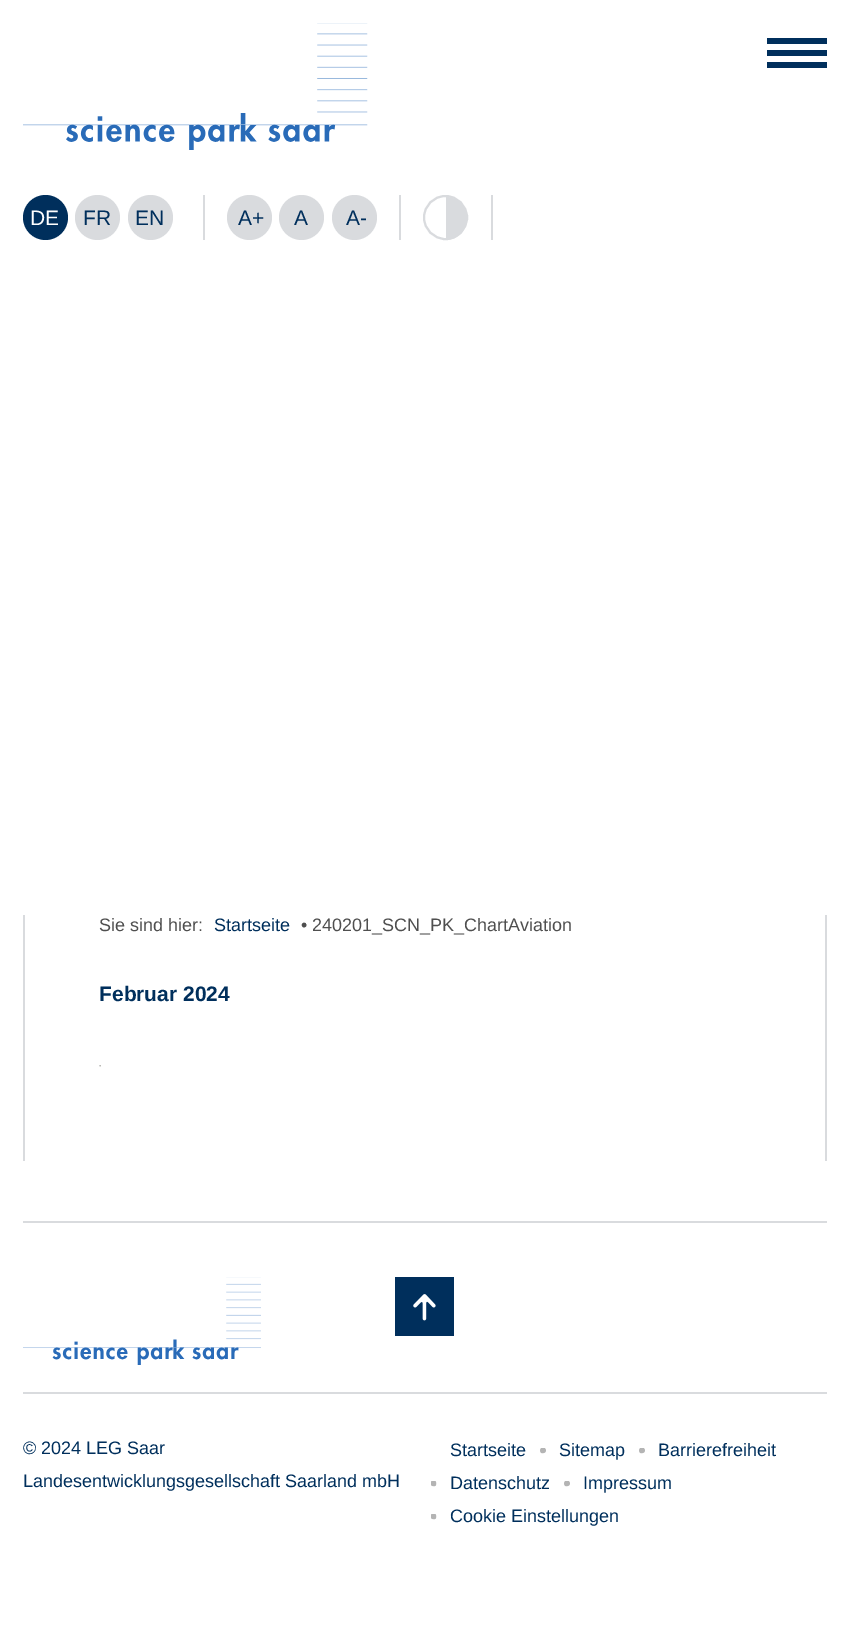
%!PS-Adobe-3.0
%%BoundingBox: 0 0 848 1631
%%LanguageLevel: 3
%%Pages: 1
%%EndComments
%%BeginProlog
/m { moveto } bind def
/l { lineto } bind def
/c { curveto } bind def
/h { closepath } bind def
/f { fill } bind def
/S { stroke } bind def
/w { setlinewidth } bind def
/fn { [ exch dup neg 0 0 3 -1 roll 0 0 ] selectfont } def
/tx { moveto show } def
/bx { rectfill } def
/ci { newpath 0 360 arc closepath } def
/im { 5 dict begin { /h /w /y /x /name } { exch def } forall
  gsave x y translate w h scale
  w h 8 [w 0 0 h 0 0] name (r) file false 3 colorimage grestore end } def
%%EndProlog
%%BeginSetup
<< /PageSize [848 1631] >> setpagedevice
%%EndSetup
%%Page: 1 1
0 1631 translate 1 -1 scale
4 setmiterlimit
1 setgray
0 0 848 1631 bx
(image0.raw) 23 23 345 127 im
0 0.184 0.361 setrgbcolor
767 38 60 6 bx
767 50 60 6 bx
767 62 60 6 bx
0.851 0.859 0.871 setrgbcolor
203 195 2 45 bx
0 0.184 0.361 setrgbcolor
45.5 217.5 22.5 ci f
/LiberationSans-Regular 21 fn
1 setgray
(DE) 30 225 tx
0.851 0.859 0.871 setrgbcolor
97.5 217.5 22.5 ci f
0 0.184 0.361 setrgbcolor
(FR) 83 225 tx
0.851 0.859 0.871 setrgbcolor
150.5 217.5 22.5 ci f
0 0.184 0.361 setrgbcolor
(EN) 135 225 tx
0.851 0.859 0.871 setrgbcolor
399 195 2 45 bx
249.5 217.5 22.5 ci f
0 0.184 0.361 setrgbcolor
(A+) 238 225 tx
0.851 0.859 0.871 setrgbcolor
301.5 217.5 22.5 ci f
0 0.184 0.361 setrgbcolor
(A) 294 225 tx
0.851 0.859 0.871 setrgbcolor
354.5 217.5 22.5 ci f
0 0.184 0.361 setrgbcolor
(A-) 346 225 tx
0.851 0.859 0.871 setrgbcolor
491 195 2 45 bx
2 w
445.5 217.5 21.5 ci S
446 197 m 457.5 197 467 206.5 467 218 c 467 219 l 467 230.5 457.5 240 446 240 c h f
825 915 2 246 bx
23 915 2 246 bx
/LiberationSans-Regular 18 fn
0.31 setgray
(Sie sind hier:) 99 931 tx
0 0.184 0.361 setrgbcolor
(Startseite) 214 931 tx
0.31 setgray
(• 240201_SCN_PK_ChartAviation) 301 931 tx
/LiberationSans-Bold 21 fn
0 0.184 0.361 setrgbcolor
(Februar 2024) 99 1001 tx
(image1.raw) 99 1065 2 2 im
0.851 0.859 0.871 setrgbcolor
23 1221 804 2 bx
(image2.raw) 23 1277 238 88 im
(image3.raw) 395 1277 59 59 im
23 1392 804 2 bx
/LiberationSans-Regular 18 fn
0 0.184 0.361 setrgbcolor
(© 2024 LEG Saar) 23 1454 tx
(Landesentwicklungsgesellschaft Saarland mbH) 23 1487 tx
(Startseite) 450 1456 tx
(image4.raw) 540 1448 6 6 im
(Sitemap) 559 1456 tx
(image4.raw) 639 1448 6 6 im
(Barrierefreiheit) 658 1456 tx
(image5.raw) 431 1481 6 6 im
(Datenschutz) 450 1489 tx
(image4.raw) 564 1481 6 6 im
(Impressum) 583 1489 tx
(image5.raw) 431 1514 6 6 im
(Cookie Einstellungen) 450 1522 tx
showpage
%%EOF
